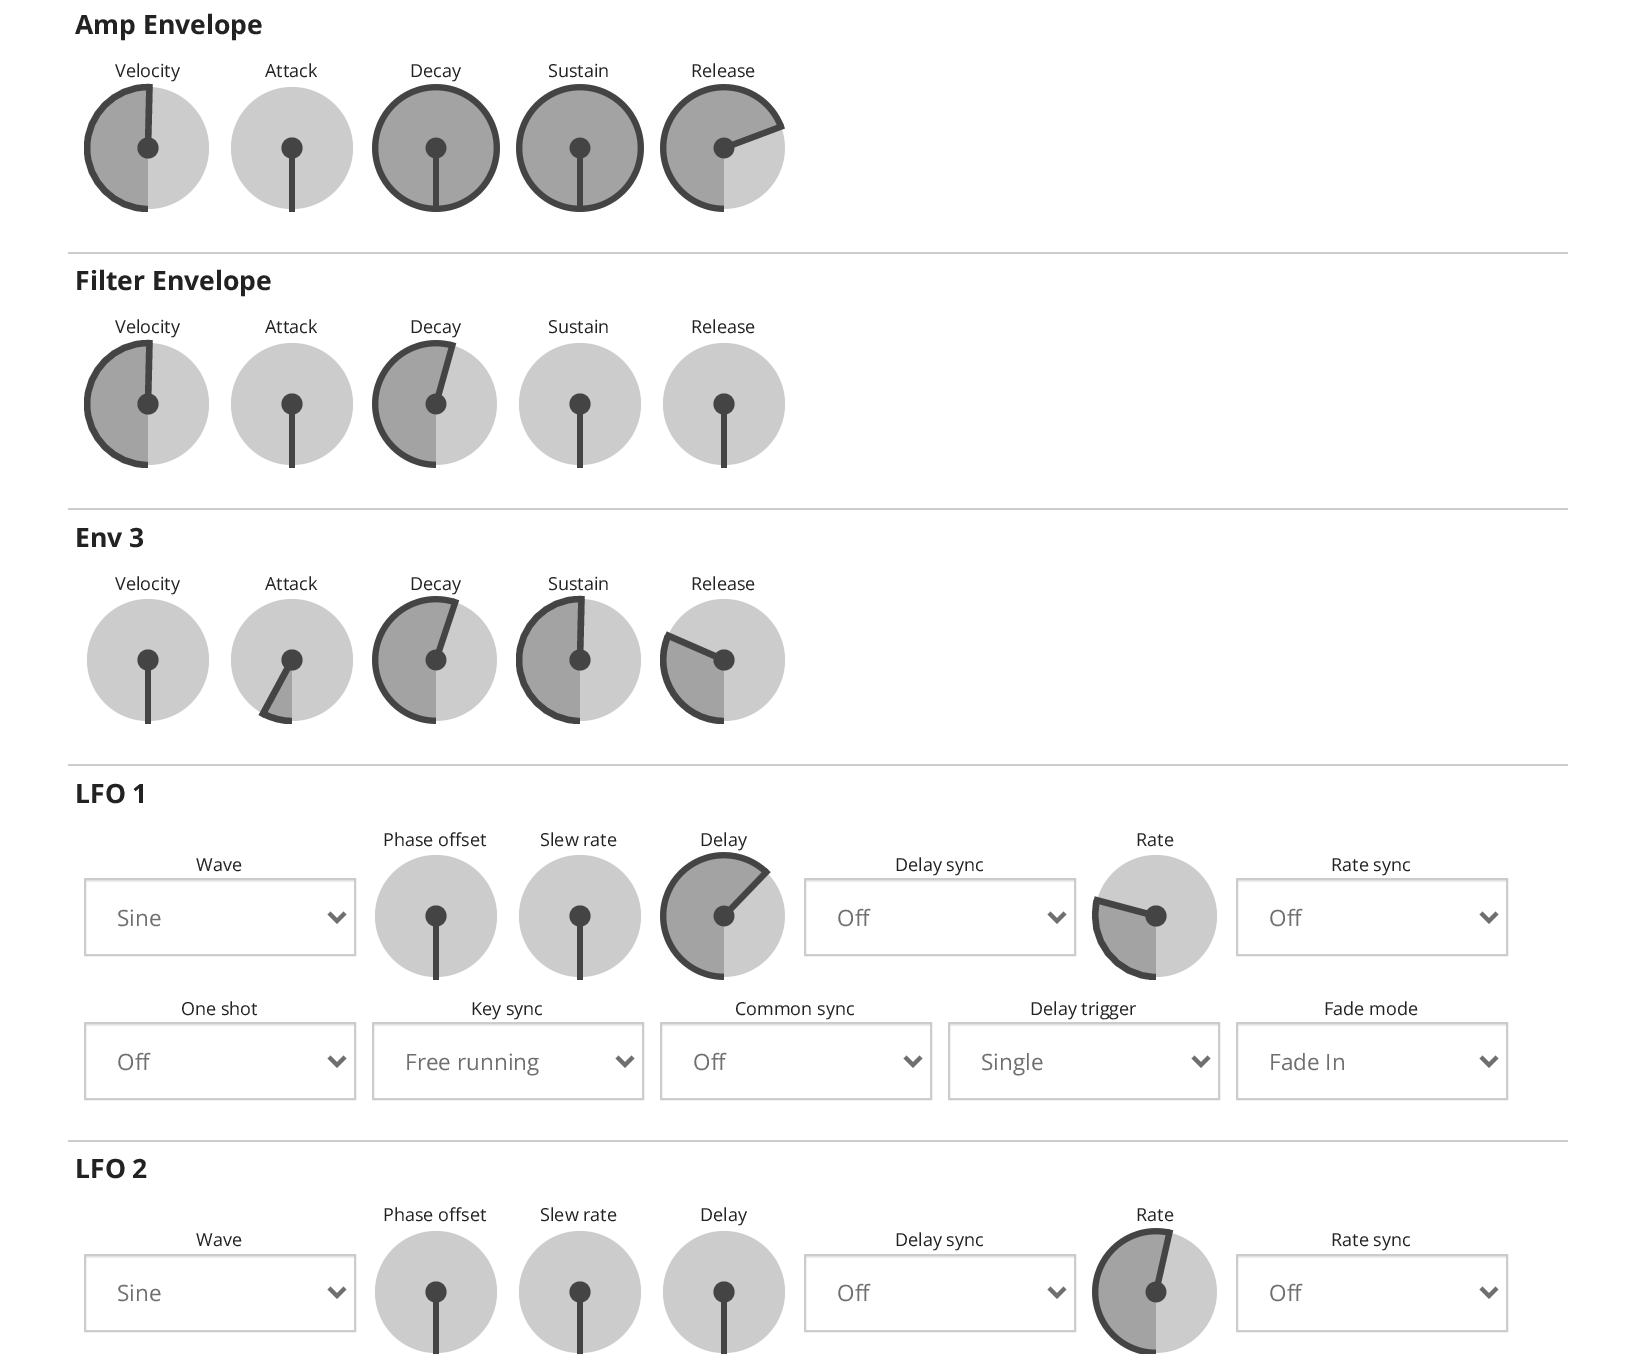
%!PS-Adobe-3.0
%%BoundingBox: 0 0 1634 1354
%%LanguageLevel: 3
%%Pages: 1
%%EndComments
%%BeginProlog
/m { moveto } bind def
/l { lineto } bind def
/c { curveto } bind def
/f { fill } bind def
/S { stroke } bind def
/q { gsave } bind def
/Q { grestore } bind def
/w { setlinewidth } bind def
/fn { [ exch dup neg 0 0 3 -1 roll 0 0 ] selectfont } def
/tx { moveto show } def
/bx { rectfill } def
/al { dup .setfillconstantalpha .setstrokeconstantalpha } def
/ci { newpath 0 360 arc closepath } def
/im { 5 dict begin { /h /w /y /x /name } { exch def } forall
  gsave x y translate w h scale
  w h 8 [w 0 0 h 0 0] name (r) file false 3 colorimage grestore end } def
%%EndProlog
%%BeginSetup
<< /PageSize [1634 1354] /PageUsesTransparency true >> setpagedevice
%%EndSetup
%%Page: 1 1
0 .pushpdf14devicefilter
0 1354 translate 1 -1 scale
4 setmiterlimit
1 setgray
0 0 1634 1354 bx
/OpenSans-Bold 26.5 fn
0.133 setgray
(Amp Envelope) 75 34 tx
/OpenSans-Regular 18 fn
(Velocity) 115 77 tx
0.8 setgray
148 148 61 ci f
q
84 84 128 128 rectclip
0.267 setgray
6.4 w
148 87 m 114.5 87 87 114.5 87 148 c 87 181.5 114.5 209 148 209 c S
Q
0.3 al
0.267 setgray
148 87 m 114 87 87 114 87 148 c 87 182 114 209 148 209 c 148 148 l f
1 al
6.4 w
148 148 m 149.5 84 l S
148 148 10.5 ci f
0.133 setgray
(Attack) 265 77 tx
0.8 setgray
292 148 61 ci f
0.267 setgray
289 158 6 54 bx
292 148 10.5 ci f
0.133 setgray
(Decay) 410 77 tx
(image0.raw) 372 84 128 128 im
(Sustain) 548 77 tx
(image0.raw) 516 84 128 128 im
(Release) 691 77 tx
(image1.raw) 660 84 125 128 im
0.8 setgray
68 252 1500 2 bx
/OpenSans-Bold 26.5 fn
0.133 setgray
(Filter Envelope) 75 290 tx
/OpenSans-Regular 18 fn
(Velocity) 115 333 tx
0.8 setgray
148 404 61 ci f
q
84 340 128 128 rectclip
0.267 setgray
148 343 m 114.5 343 87 370.5 87 404 c 87 437.5 114.5 465 148 465 c S
Q
0.3 al
0.267 setgray
148 343 m 114 343 87 370 87 404 c 87 438 114 465 148 465 c 148 404 l f
1 al
148 404 m 149.5 340 l S
148 404 10.5 ci f
0.133 setgray
(Attack) 265 333 tx
0.8 setgray
292 404 61 ci f
0.267 setgray
289 414 6 54 bx
292 404 10.5 ci f
0.133 setgray
(Decay) 410 333 tx
(image2.raw) 372 340 125 128 im
(Sustain) 548 333 tx
0.8 setgray
580 404 61 ci f
0.267 setgray
577 414 6 54 bx
580 404 10.5 ci f
0.133 setgray
(Release) 691 333 tx
0.8 setgray
724 404 61 ci f
0.267 setgray
721 414 6 54 bx
724 404 10.5 ci f
0.8 setgray
68 508 1500 2 bx
/OpenSans-Bold 26.5 fn
0.133 setgray
(Env 3) 75 547 tx
/OpenSans-Regular 18 fn
(Velocity) 115 590 tx
0.8 setgray
148 660 61 ci f
0.267 setgray
145 670 6 54 bx
148 660 10.5 ci f
0.133 setgray
(Attack) 265 590 tx
0.8 setgray
292 660 61 ci f
q
228 596 128 128 rectclip
0.267 setgray
263 713.5 m 272 718.5 282 721 292 721 c S
Q
0.3 al
0.267 setgray
263 714 m 272 718 282 721 292 721 c 292 660 l f
1 al
292 660 m 261.5 716.5 l S
292 660 10.5 ci f
0.133 setgray
(Decay) 410 590 tx
(image3.raw) 372 596 125 128 im
(Sustain) 548 590 tx
0.8 setgray
580 660 61 ci f
q
516 596 128 128 rectclip
0.267 setgray
580 599 m 546.5 599 519 626.5 519 660 c 519 693.5 546.5 721 580 721 c S
Q
0.3 al
0.267 setgray
580 599 m 546 599 519 626 519 660 c 519 694 546 721 580 721 c 580 660 l f
1 al
580 660 m 581.5 596 l S
580 660 10.5 ci f
0.133 setgray
(Release) 691 590 tx
0.8 setgray
724 660 61 ci f
q
660 596 128 128 rectclip
0.267 setgray
668 636 m 651 676 680.5 721 724 721 c S
Q
0.3 al
0.267 setgray
668 636 m 651 676 681 721 724 721 c 724 660 l f
1 al
724 660 m 665.5 634.5 l S
724 660 10.5 ci f
0.8 setgray
68 764 1500 2 bx
/OpenSans-Bold 26.5 fn
0.133 setgray
(LFO 1) 75 803 tx
/OpenSans-Regular 18 fn
(Phase offset) 383 846 tx
0.8 setgray
436 916 61 ci f
0.267 setgray
433 926 6 54 bx
436 916 10.5 ci f
0.133 setgray
(Slew rate) 540 846 tx
0.8 setgray
580 916 61 ci f
0.267 setgray
577 926 6 54 bx
580 916 10.5 ci f
0.133 setgray
(Delay) 700 846 tx
(image4.raw) 660 852 125 128 im
(Rate) 1136 846 tx
0.8 setgray
1156 916 61 ci f
q
1092 852 128 128 rectclip
0.267 setgray
1097 900.5 m 1087 939 1116.5 977 1156 977 c S
Q
0.3 al
0.267 setgray
1097 900 m 1087 939 1116 977 1156 977 c 1156 916 l f
1 al
1156 916 m 1094 899.5 l S
1156 916 10.5 ci f
0.133 setgray
(Wave) 196 871 tx
0.925 setgray
86 880 268 2 bx
0.8 setgray
2 w
85 879 270 76 rectstroke
0.435 setgray
4 w
329 913 m 337 921 l 345 913 l S
/OpenSans-Regular 22.5 fn
(Sine) 117 926 tx
/OpenSans-Regular 18 fn
0.133 setgray
(Delay sync) 895 871 tx
0.925 setgray
806 880 268 2 bx
0.8 setgray
2 w
805 879 270 76 rectstroke
0.435 setgray
4 w
1049 913 m 1057 921 l 1065 913 l S
/OpenSans-Regular 22.5 fn
(Off) 837 926 tx
/OpenSans-Regular 18 fn
0.133 setgray
(Rate sync) 1331 871 tx
0.925 setgray
1238 880 268 2 bx
0.8 setgray
2 w
1237 879 270 76 rectstroke
0.435 setgray
4 w
1481 913 m 1489 921 l 1497 913 l S
/OpenSans-Regular 22.5 fn
(Off) 1269 926 tx
/OpenSans-Regular 18 fn
0.133 setgray
(One shot) 181 1015 tx
0.925 setgray
86 1024 268 2 bx
0.8 setgray
2 w
85 1023 270 76 rectstroke
0.435 setgray
4 w
329 1057 m 337 1065 l 345 1057 l S
/OpenSans-Regular 22.5 fn
(Off) 117 1070 tx
/OpenSans-Regular 18 fn
0.133 setgray
(Key sync) 471 1015 tx
0.925 setgray
374 1024 268 2 bx
0.8 setgray
2 w
373 1023 270 76 rectstroke
0.435 setgray
4 w
617 1057 m 625 1065 l 633 1057 l S
/OpenSans-Regular 22.5 fn
(Free running) 405 1070 tx
/OpenSans-Regular 18 fn
0.133 setgray
(Common sync) 735 1015 tx
0.925 setgray
662 1024 268 2 bx
0.8 setgray
2 w
661 1023 270 76 rectstroke
0.435 setgray
4 w
905 1057 m 913 1065 l 921 1057 l S
/OpenSans-Regular 22.5 fn
(Off) 693 1070 tx
/OpenSans-Regular 18 fn
0.133 setgray
(Delay trigger) 1030 1015 tx
0.925 setgray
950 1024 268 2 bx
0.8 setgray
2 w
949 1023 270 76 rectstroke
0.435 setgray
4 w
1193 1057 m 1201 1065 l 1209 1057 l S
/OpenSans-Regular 22.5 fn
(Single) 981 1070 tx
/OpenSans-Regular 18 fn
0.133 setgray
(Fade mode) 1324 1015 tx
0.925 setgray
1238 1024 268 2 bx
0.8 setgray
2 w
1237 1023 270 76 rectstroke
0.435 setgray
4 w
1481 1057 m 1489 1065 l 1497 1057 l S
/OpenSans-Regular 22.5 fn
(Fade In) 1269 1070 tx
0.8 setgray
68 1140 1500 2 bx
/OpenSans-Bold 26.5 fn
0.133 setgray
(LFO 2) 75 1178 tx
/OpenSans-Regular 18 fn
(Phase offset) 383 1221 tx
0.8 setgray
436 1292 61 ci f
0.267 setgray
433 1302 6 52 bx
436 1292 10.5 ci f
0.133 setgray
(Slew rate) 540 1221 tx
0.8 setgray
580 1292 61 ci f
0.267 setgray
577 1302 6 52 bx
580 1292 10.5 ci f
0.133 setgray
(Delay) 700 1221 tx
0.8 setgray
724 1292 61 ci f
0.267 setgray
721 1302 6 52 bx
724 1292 10.5 ci f
0.133 setgray
(Rate) 1136 1221 tx
(image5.raw) 1092 1228 125 126 im
(Wave) 196 1246 tx
0.925 setgray
86 1256 268 2 bx
0.8 setgray
2 w
85 1255 270 76 rectstroke
0.435 setgray
4 w
329 1288 m 337 1296 l 345 1288 l S
/OpenSans-Regular 22.5 fn
(Sine) 117 1301 tx
/OpenSans-Regular 18 fn
0.133 setgray
(Delay sync) 895 1246 tx
0.925 setgray
806 1256 268 2 bx
0.8 setgray
2 w
805 1255 270 76 rectstroke
0.435 setgray
4 w
1049 1288 m 1057 1296 l 1065 1288 l S
/OpenSans-Regular 22.5 fn
(Off) 837 1301 tx
/OpenSans-Regular 18 fn
0.133 setgray
(Rate sync) 1331 1246 tx
0.925 setgray
1238 1256 268 2 bx
0.8 setgray
2 w
1237 1255 270 76 rectstroke
0.435 setgray
4 w
1481 1288 m 1489 1296 l 1497 1288 l S
/OpenSans-Regular 22.5 fn
(Off) 1269 1301 tx
.poppdf14devicefilter showpage
%%EOF
